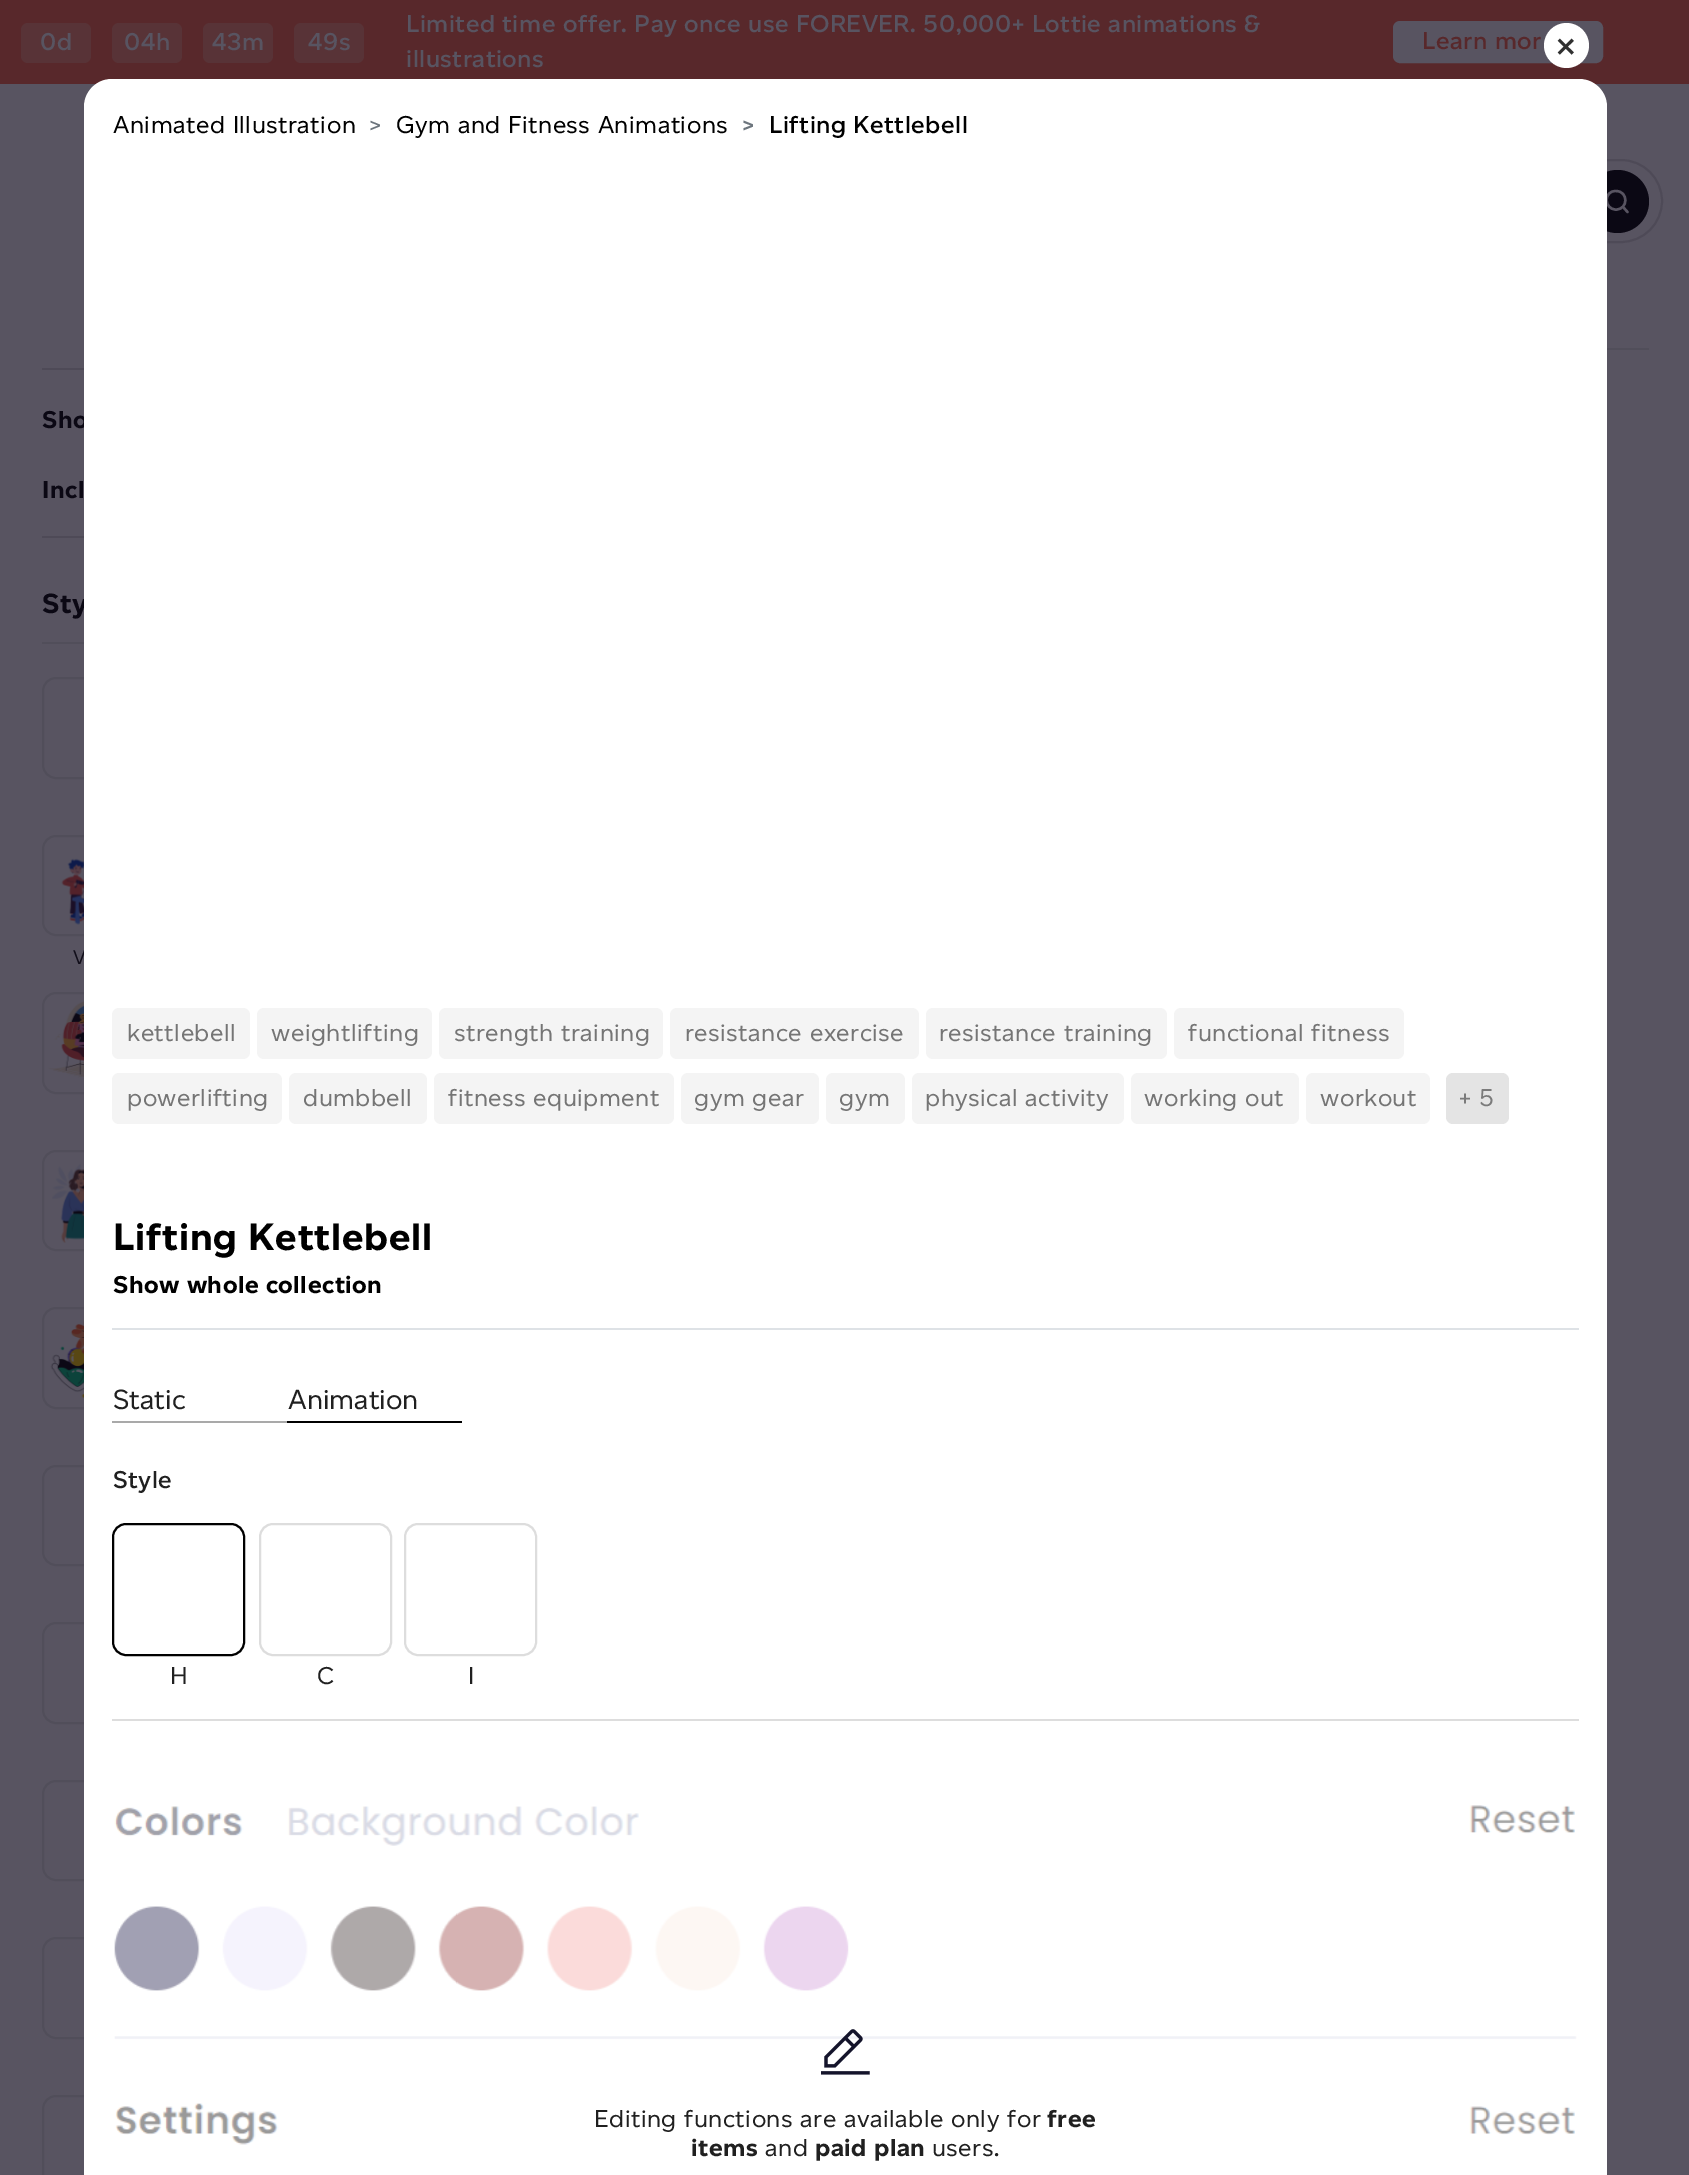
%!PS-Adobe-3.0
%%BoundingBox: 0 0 1689 2175
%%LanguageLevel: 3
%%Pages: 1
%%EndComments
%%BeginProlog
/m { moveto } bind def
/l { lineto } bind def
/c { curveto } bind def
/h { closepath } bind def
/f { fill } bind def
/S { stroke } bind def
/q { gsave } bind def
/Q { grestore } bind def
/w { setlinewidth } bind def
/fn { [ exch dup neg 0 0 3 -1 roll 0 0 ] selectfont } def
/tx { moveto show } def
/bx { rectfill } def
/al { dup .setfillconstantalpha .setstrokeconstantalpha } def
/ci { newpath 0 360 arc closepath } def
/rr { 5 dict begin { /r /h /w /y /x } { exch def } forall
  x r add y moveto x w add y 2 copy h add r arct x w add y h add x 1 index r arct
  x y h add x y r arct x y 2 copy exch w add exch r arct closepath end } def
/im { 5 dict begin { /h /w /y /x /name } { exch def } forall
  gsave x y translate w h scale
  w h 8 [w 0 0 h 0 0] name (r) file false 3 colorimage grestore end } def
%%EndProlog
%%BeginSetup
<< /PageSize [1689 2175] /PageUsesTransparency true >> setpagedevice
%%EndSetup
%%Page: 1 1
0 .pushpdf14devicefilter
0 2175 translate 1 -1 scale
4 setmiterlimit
0.345 0.329 0.38 setrgbcolor
0 0 1689 2175 bx
0.345 0.157 0.169 setrgbcolor
0 0 1689 84 bx
0.345 0.2 0.216 setrgbcolor
21 23 70 40 7 rr f
/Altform-SemiBold 24.5 fn
0.345 0.329 0.38 setrgbcolor
40 50 m 0.5 0 (0d) ashow
0.345 0.2 0.216 setrgbcolor
112 23 70 40 7 rr f
0.345 0.329 0.38 setrgbcolor
124 50 m 0.5 0 (04h) ashow
0.345 0.2 0.216 setrgbcolor
203 23 70 40 7 rr f
0.345 0.329 0.38 setrgbcolor
212 50 m 0.5 0 (43m) ashow
0.345 0.2 0.216 setrgbcolor
294 23 70 40 7 rr f
0.345 0.329 0.38 setrgbcolor
308 50 m 0.5 0 (49s) ashow
406 32 m 0.5 0 (Limited time offer. Pay once use FOREVER. 50,000+ Lottie animations &) ashow
406 67 m 0.5 0 (illustrations) ashow
1394 22 208 40 6 rr q f Q
2 w
S
0.345 0.157 0.169 setrgbcolor
1422 49 m 0.5 0 (Learn mor) ashow
/Altform-Bold 24.5 fn
0.043 0.031 0.078 setrgbcolor
42 428 m 0.5 0 (Sho) ashow
/Altform-Bold 28 fn
42 613 m 0.5 0 (Sty) ashow
0.318 0.306 0.353 setrgbcolor
43 678 100 100 13 rr S
43 836 100 99 13 rr S
/Altform-Regular 20 fn
0.067 0.055 0.102 setrgbcolor
(V) 73 964 tx
0.318 0.306 0.353 setrgbcolor
43 993 100 100 13 rr S
43 1151 100 99 13 rr S
43 1308 100 100 13 rr S
43 1466 100 99 13 rr S
43 1623 100 100 13 rr S
43 1781 100 99 13 rr S
43 1938 100 100 13 rr S
43 2096 100 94 13 rr S
0.306 0.29 0.341 setrgbcolor
789 160 873 82 41 rr S
0.043 0.031 0.078 setrgbcolor
1617.5 201.5 31.5 ci f
0.345 0.329 0.38 setrgbcolor
2.4 w
1 setlinecap
1 setlinejoin
1616 209.5 m 1628.5 209.5 1628.5 191 1616 191 c 1603.5 190.5 1603.5 209.5 1616 209.5 c h 1627.5 212 m 1623.5 207.5 l S
1 setgray
112 79 m 1579 79 l 1594.5 79 1607 91.5 1607 107 c 1607 2175 l 84 2175 l 84 107 l 84 91.5 96.5 79 112 79 c h f
1566.5 45.5 22.5 ci f
/Altform-Regular 44 fn
0.192 setgray
(×) 1555 60 tx
/Altform-Regular 24.5 fn
0 setgray
113 133 m 0.5 0 (Animated Illustration) ashow
0.424 0.459 0.49 setrgbcolor
369 133 m 0.5 0 (>) ashow
0 setgray
396 133 m 0.5 0 (Gym and Fitness Animations) ashow
/Altform-SemiBold 24.5 fn
0.424 0.459 0.49 setrgbcolor
742 133 m 0.5 0 (>) ashow
0 setgray
769 133 m 0.5 0 (Lifting Kettlebell) ashow
0.957 setgray
112 1008 138 51 7 rr f
/Altform-Regular 24.5 fn
0.459 setgray
127 1041 m 0.5 0 (kettlebell) ashow
0.957 setgray
257 1008 175 51 7 rr f
0.459 setgray
271 1041 m 0.5 0 (weightlifting) ashow
0.957 setgray
439 1008 224 51 7 rr f
0.459 setgray
454 1041 m 0.5 0 (strength training) ashow
0.957 setgray
670 1008 249 51 7 rr f
0.459 setgray
685 1041 m 0.5 0 (resistance exercise) ashow
0.957 setgray
926 1008 241 51 7 rr f
0.459 setgray
939 1041 m 0.5 0 (resistance training) ashow
0.957 setgray
1174 1008 230 51 7 rr f
0.459 setgray
1188 1041 m 0.5 0 (functional fitness) ashow
0.957 setgray
112 1073 170 51 7 rr f
0.459 setgray
127 1106 m 0.5 0 (powerlifting) ashow
0.957 setgray
289 1073 138 51 7 rr f
0.459 setgray
303 1106 m 0.5 0 (dumbbell) ashow
0.957 setgray
434 1073 240 51 7 rr f
0.459 setgray
448 1106 m 0.5 0 (fitness equipment) ashow
0.957 setgray
681 1073 138 51 7 rr f
0.459 setgray
694 1106 m 0.5 0 (gym gear) ashow
0.957 setgray
826 1073 79 51 7 rr f
0.459 setgray
839 1106 m 0.5 0 (gym) ashow
0.957 setgray
912 1073 212 51 7 rr f
0.459 setgray
925 1106 m 0.5 0 (physical activity) ashow
0.957 setgray
1131 1073 168 51 7 rr f
0.459 setgray
1144 1106 m 0.5 0 (working out) ashow
0.957 setgray
1306 1073 124 51 7 rr f
0.459 setgray
1320 1106 m 0.5 0 (workout) ashow
0.894 setgray
1446 1073 63 51 7 rr f
0.482 setgray
1459 1106 m 0.5 0 (+ 5) ashow
0.871 0.886 0.902 setrgbcolor
112 1328 1467 2 bx
/Altform-Bold 38.25 fn
0 setgray
113 1250 m 0.75 0 (Lifting Kettlebell) ashow
/Altform-Bold 24.5 fn
113 1293 m 0.5 0 (Show whole collection) ashow
0.663 setgray
112 1421 175 2 bx
/Altform-Regular 28 fn
0.125 setgray
(Static) 113 1409 tx
0 setgray
287 1421 175 2 bx
0.125 setgray
(Animation) 288 1409 tx
0.867 setgray
112 1719 1467 2 bx
/Altform-SemiBold 24.5 fn
0.125 setgray
113 1488 m 0.5 0 (Style) ashow
0 setgray
2 w
0 setlinecap
0 setlinejoin
113 1524 131 131 13 rr S
/Altform-Regular 24.5 fn
0.125 setgray
(H) 170 1684 tx
0.867 setgray
260 1524 131 131 13 rr S
0.125 setgray
(C) 317 1684 tx
0.867 setgray
405 1524 131 131 13 rr S
0.125 setgray
(I) 468 1684 tx
(image0.raw) 114 1805 1463 340 im
0.6 al
1 setgray
114 1805 1463 340 bx
1 al
(image1.raw) 821 2029 49 46 im
0.125 setgray
594 2127 m 0.5 0 (Editing functions are available only for) ashow
/Altform-Bold 24.5 fn
1047 2127 m 0.5 0 (free) ashow
691 2156 m 0.5 0 (items) ashow
/Altform-Regular 24.5 fn
765 2156 m 0.5 0 (and) ashow
/Altform-Bold 24.5 fn
815 2156 m 0.5 0 (paid plan) ashow
/Altform-Regular 24.5 fn
932 2156 m 0.5 0 (users.) ashow
0.318 0.306 0.353 setrgbcolor
1607 348 42 2 bx
0.306 0.29 0.341 setrgbcolor
42 368 42 2 bx
/Altform-Bold 24.5 fn
0.043 0.031 0.078 setrgbcolor
42 498 m 0.5 0 (Incl) ashow
0.306 0.29 0.341 setrgbcolor
42 536 42 2 bx
0.318 0.306 0.353 setrgbcolor
42 642 42 2 bx
(image2.raw) 61 858 23 67 im
(image3.raw) 48 1001 36 78 im
(image4.raw) 52 1163 32 80 im
(image5.raw) 50 1320 34 79 im
.poppdf14devicefilter showpage
%%EOF
